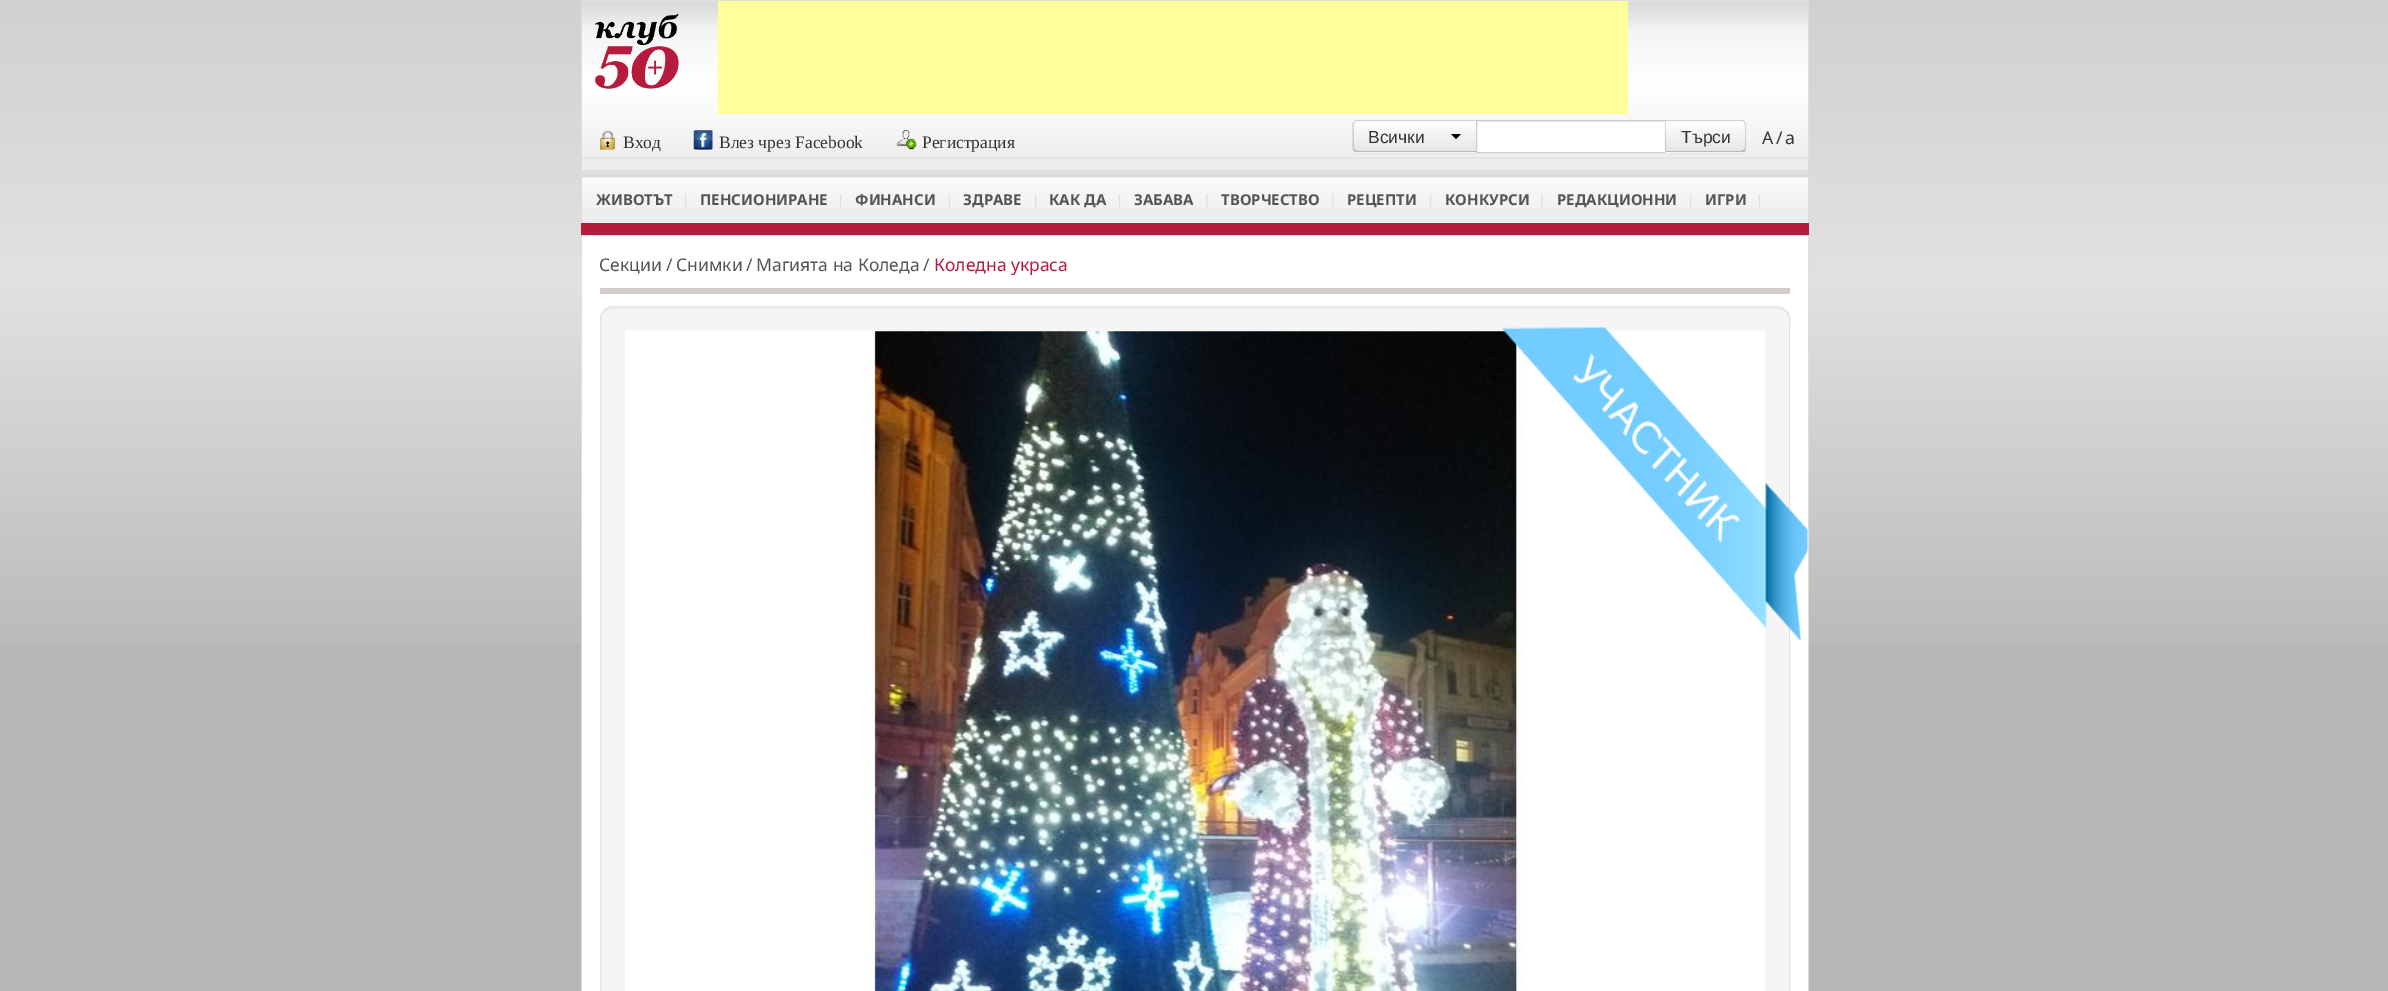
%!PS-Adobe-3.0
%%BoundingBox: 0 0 2388 991
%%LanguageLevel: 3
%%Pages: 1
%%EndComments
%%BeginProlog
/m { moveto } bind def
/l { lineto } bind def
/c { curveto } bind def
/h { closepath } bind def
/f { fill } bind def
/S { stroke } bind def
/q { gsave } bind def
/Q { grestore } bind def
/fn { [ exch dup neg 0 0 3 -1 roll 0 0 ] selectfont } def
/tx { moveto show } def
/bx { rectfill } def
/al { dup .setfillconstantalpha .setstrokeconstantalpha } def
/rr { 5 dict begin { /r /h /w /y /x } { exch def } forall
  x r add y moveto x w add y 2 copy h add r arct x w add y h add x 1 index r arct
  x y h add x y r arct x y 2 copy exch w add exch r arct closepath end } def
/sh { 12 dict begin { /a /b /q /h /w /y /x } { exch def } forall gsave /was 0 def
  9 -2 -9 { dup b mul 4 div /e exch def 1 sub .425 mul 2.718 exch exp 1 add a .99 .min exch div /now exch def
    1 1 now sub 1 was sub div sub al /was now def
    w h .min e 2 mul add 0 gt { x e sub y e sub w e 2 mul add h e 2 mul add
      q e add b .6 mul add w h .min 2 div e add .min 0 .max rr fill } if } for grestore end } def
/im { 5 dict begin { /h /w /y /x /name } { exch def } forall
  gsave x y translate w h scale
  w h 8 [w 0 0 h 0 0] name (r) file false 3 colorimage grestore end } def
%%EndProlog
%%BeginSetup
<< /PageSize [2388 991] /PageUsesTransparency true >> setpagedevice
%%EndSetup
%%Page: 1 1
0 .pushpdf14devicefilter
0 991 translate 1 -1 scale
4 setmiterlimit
0.714 setgray
0 0 2388 991 bx
(image0.raw) 0 0 2388 644 im
1 setgray
581 0 1228 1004 13 rr f
0.929 setgray
586 0 m 1804 0 l 1807 0 1809 2 1809 5 c 1809 170 l 581 170 l 581 5 l 581 2 583 0 586 0 c h f
(image1.raw) 581 1 1228 158 im
0.871 setgray
586 0 m 1804 0 l 1807 0 1809 2 1809 5 c 1809 170 l 581 170 l 581 5 l 581 2 583 0 586 0 c h 586 1 m 1804 1 l 1806 1 1808 3 1808 5 c 1808 170 l 582 170 l 582 5 l 582 3 584 1 586 1 c h eofill
(image2.raw) 595 13 84 76 im
1 1 0.6 setrgbcolor
718 1 910 113 bx
(image3.raw) 600 130 16 20 im
/LiberationSerif-Regular 17.5 fn
0.2 setgray
(Вход) 623 148 tx
(image4.raw) 693 130 20 20 im
(Влез чрез Facebook) 719 148 tx
(image5.raw) 896 130 21 20 im
(Регистрация) 922 148 tx
0 setgray
1353 121 125 33 5 1 0.05 sh
0.961 setgray
1358 120 m 1478 120 l 1478 153 l 1358 153 l 1355 153 1353 151 1353 148 c 1353 125 l 1353 122 1355 120 1358 120 c h f
q
1358 120 m 1478 120 l 1478 153 l 1358 153 l 1355 153 1353 151 1353 148 c 1353 125 l 1353 122 1355 120 1358 120 c h clip newpath
q 1353 121 m 1476 121 l 1476 151 l 1353 151 l h clip newpath
<< /ShadingType 2 /ColorSpace /DeviceRGB /Coords [1415 121 1415 151] /Extend [true true] /Function << /FunctionType 2 /Domain [0 1] /C0 [1 1 1] /C1 [0.902 0.902 0.902] /N 1 >> >> shfill Q
Q
0.15 al
0 setgray
1358 120 m 1356 120 1355 120 1354 121 c 1355 122 l 1357 121 l 1476 121 l 1476 122 l 1478 120 l h f
0.25 al
1477 152 m 1358 152 l 1357 152 1355 152 1354 151 c 1355 150 l 1357 151 l 1476 151 l h f
0.15 al
1352.5 123 m 1354 121.5 l 1355 122.5 l 1354 123 1354 124 1354 125 c 1354 148 l 1354 149 1354 149.5 1355 150 c 1354 151 l 1352.5 149.5 l h f
/LiberationSans-Regular 17.5 fn
1 al
0.2 setgray
(Всички) 1368 143 tx
0 setgray
1451 134 m 1461 134 l 1456 139 l h f
1 setgray
1477 121 188 31 bx
0.925 setgray
1478 121 187 1 bx
0.8 setgray
1476.5 120.5 189 32 rectstroke
0 setgray
1665 121 81 33 5 1 0.05 sh
0.961 setgray
1665 120 m 1741 120 l 1744 120 1746 122 1746 125 c 1746 148 l 1746 151 1744 153 1741 153 c 1665 153 l h f
q
1665 120 m 1741 120 l 1744 120 1746 122 1746 125 c 1746 148 l 1746 151 1744 153 1741 153 c 1665 153 l h clip newpath
q 1665 121 m 1746 121 l 1746 151 l 1665 151 l h clip newpath
<< /ShadingType 2 /ColorSpace /DeviceRGB /Coords [1706 121 1706 151] /Extend [true true] /Function << /FunctionType 2 /Domain [0 1] /C0 [1 1 1] /C1 [0.902 0.902 0.902] /N 1 >> >> shfill Q
Q
0.15 al
0 setgray
1665 120 m 1666 121 l 1741 121 l 1744 122 l 1745 122 l 1744 121 1743 120 1741 120 c h f
1744.5 121.5 m 1745.5 122.5 1746 123.5 1746 125 c 1746 148 l 1746 149 1745.5 150 1744.5 151 c 1744 150 l 1744.5 149.5 1745 149 1745 148 c 1745 125 l 1745 124 1744.5 123 1744 122.5 c h f
0.25 al
1745 151 m 1744 152 1742 152 1741 152 c 1666 152 l 1666 151 l 1741 151 l 1744 150 l h f
0.15 al
1666 121 m 1665 120 l 1665 152 l 1665.5 152 l 1666.5 151 l 1666 151 l h f
1 al
0.2 setgray
(Търси) 1681 143 tx
/NotoSans-Regular 17.5 fn
(A) 1762 144 tx
(/) 1776 144 tx
(a) 1785 144 tx
0.929 setgray
582 171 1226 52 bx
(image6.raw) 582 171 1226 37 im
0.871 setgray
581 170 1228 1 bx
1808 170 1 53 bx
581 170 1 53 bx
(image7.raw) 685 193 2 15 im
/NotoSans-Bold 15 fn
0.333 setgray
(ЖИВОТЪТ) 596 205 tx
(image7.raw) 840 193 2 15 im
(ПЕНСИОНИРАНЕ) 700 205 tx
(image8.raw) 948 193 2 15 im
(ФИНАНСИ) 855 205 tx
(image7.raw) 1035 193 2 15 im
(ЗДРАВЕ) 963 205 tx
(image8.raw) 1118 193 2 15 im
(КАК ДА) 1049 205 tx
(image9.raw) 1206 193 2 15 im
(ЗАБАВА) 1134 205 tx
(image10.raw) 1332 193 2 15 im
(ТВОРЧЕСТВО) 1221 205 tx
(image7.raw) 1430 193 2 15 im
(РЕЦЕПТИ) 1347 205 tx
(image9.raw) 1541 193 2 15 im
(КОНКУРСИ) 1445 205 tx
(image7.raw) 1690 193 2 15 im
(РЕДАКЦИОННИ) 1557 205 tx
(image8.raw) 1758 193 2 15 im
(ИГРИ) 1705 205 tx
0.71 0.106 0.239 setrgbcolor
581 223 1228 12 bx
0.871 setgray
581 235 1228 1 bx
1808 235 1 756 bx
581 235 1 756 bx
0.831 0.804 0.8 setrgbcolor
600 288 1190 6 bx
/NotoSans-Regular 17.5 fn
0.333 setgray
(Секции) 599 271 tx
(/) 666 271 tx
(Снимки) 676 271 tx
(/) 746 271 tx
(Магията на Коледа) 756 271 tx
(/) 923 271 tx
q
934 255 134 20 rectclip
0.71 0.106 0.239 setrgbcolor
(Коледна украса) 934 271 tx
Q
0.961 setgray
600 306 1190 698 13 rr f
0.914 setgray
612 309 m 1778 309 l 1784 309 1789 314 1789 320 c 1789 319 l 1789 313 1784 308 1778 308 c 612 308 l 606 308 601 313 601 319 c 601 320 l 601 314 606 309 612 309 c h f
0.89 setgray
600.5 306.5 1189 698 12.5 rr S
(image12.raw) 625 331 1140 660 im
(image11.raw) 1502 327 306 313 im
.poppdf14devicefilter showpage
%%EOF
